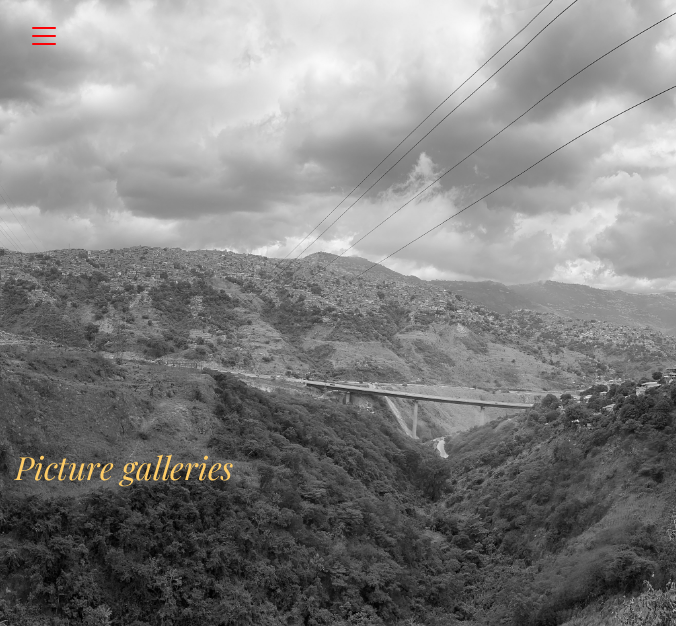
%!PS-Adobe-3.0
%%BoundingBox: 0 0 676 626
%%LanguageLevel: 3
%%Pages: 1
%%EndComments
%%BeginProlog
/fn { [ exch dup neg 0 0 3 -1 roll 0 0 ] selectfont } def
/tx { moveto show } def
/bx { rectfill } def
/im { 5 dict begin { /h /w /y /x /name } { exch def } forall
  gsave x y translate w h scale
  w h 8 [w 0 0 h 0 0] name (r) file false 3 colorimage grestore end } def
%%EndProlog
%%BeginSetup
<< /PageSize [676 626] >> setpagedevice
%%EndSetup
%%Page: 1 1
0 626 translate 1 -1 scale
4 setmiterlimit
1 setgray
0 0 676 626 bx
(image0.raw) 0 0 676 626 im
(image1.raw) 32 27 24 18 im
/PlayfairDisplay-Italic 32 fn
0.996 0.8 0.4 setrgbcolor
(Picture galleries) 15 480 tx
showpage
%%EOF
